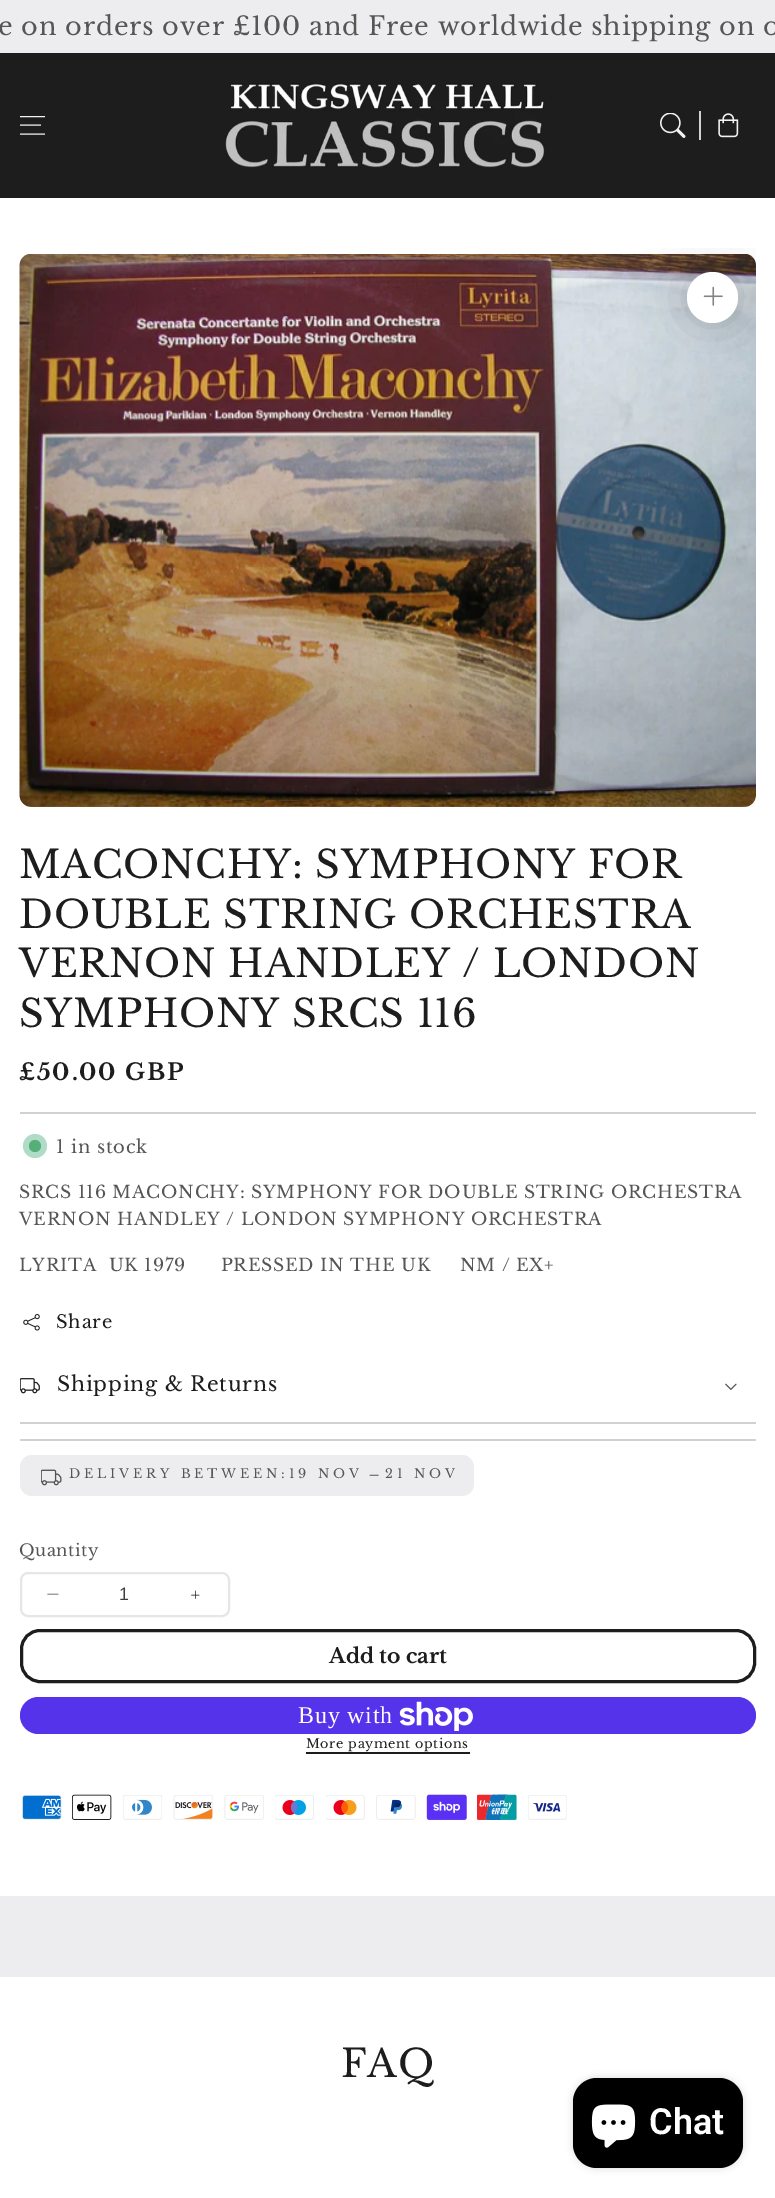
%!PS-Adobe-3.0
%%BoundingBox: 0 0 775 2198
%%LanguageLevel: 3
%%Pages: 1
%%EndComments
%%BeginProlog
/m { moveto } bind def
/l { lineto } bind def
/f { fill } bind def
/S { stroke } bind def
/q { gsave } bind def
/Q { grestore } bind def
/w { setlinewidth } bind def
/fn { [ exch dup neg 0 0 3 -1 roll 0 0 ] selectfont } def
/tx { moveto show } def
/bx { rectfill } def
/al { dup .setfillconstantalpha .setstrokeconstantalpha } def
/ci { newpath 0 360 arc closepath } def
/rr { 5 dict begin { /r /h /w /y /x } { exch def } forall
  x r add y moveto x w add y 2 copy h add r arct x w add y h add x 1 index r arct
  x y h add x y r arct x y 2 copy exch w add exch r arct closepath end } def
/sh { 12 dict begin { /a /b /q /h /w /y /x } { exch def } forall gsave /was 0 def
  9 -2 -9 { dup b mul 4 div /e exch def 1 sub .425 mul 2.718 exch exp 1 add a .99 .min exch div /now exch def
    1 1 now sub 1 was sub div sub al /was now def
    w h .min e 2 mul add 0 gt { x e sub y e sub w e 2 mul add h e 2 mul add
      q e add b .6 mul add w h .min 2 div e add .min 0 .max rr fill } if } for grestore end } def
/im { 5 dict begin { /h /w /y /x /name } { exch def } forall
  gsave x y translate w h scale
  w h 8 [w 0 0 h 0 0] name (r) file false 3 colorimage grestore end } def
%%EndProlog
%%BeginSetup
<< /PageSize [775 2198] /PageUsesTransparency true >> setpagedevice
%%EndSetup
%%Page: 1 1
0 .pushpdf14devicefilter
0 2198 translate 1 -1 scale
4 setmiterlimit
1 setgray
0 0 775 2198 bx
0.929 0.929 0.937 setrgbcolor
0 0 775 53 bx
/LibreBaskerville-Regular 25.5 fn
0.337 setgray
-2 35 m 0.77 0 (e on orders over £100 and Free worldwide shipping on o) ashow
(image4.raw) 19 254 737 553 im
q
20 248 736 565 rectclip
0.114 setgray
687 272 51 51 25.5 25.5 0.2 sh
Q
0.114 setgray
0 53 775 145 bx
q
20 113 25 25 rectclip
0.949 setgray
19.5 134 m 45 134 l 19.5 125 m 41 125 l 19.5 116.5 m 45 116.5 l S
Q
(image0.raw) 225 83 320 85 im
(image1.raw) 660 113 26 25 im
0.82 setgray
699 111 2 29 bx
(image2.raw) 718 113 21 25 im
1 setgray
712.5 297.5 25.5 ci f
(image3.raw) 703 286 20 20 im
/LibreBaskerville-Regular 38.25 fn
0.114 setgray
19 878 m 0.77 0 (MACONCHY: SYMPHONY FOR) ashow
19 928 m 0.77 0 (DOUBLE STRING ORCHESTRA) ashow
19 977 m 0.77 0 (VERNON HANDLEY / LONDON) ashow
19 1027 m 0.77 0 (SYMPHONY SRCS 116) ashow
/LibreBaskerville-Bold 23 fn
19 1080 m 1.75 0 (£50.00 GBP) ashow
0.82 setgray
20 1112 736 2 bx
0.69 0.859 0.78 setrgbcolor
35 1146 12 ci f
0.337 0.682 0.475 setrgbcolor
35 1146 6 ci f
/LibreBaskerville-Regular 18 fn
0.337 setgray
56 1153 m 0.77 0 (1 in stock) ashow
/LibreBaskerville-Regular 17.35 fn
19 1198 m 0.77 0 (SRCS 116 MACONCHY: SYMPHONY FOR DOUBLE STRING ORCHESTRA) ashow
19 1225 m 0.77 0 (VERNON HANDLEY / LONDON SYMPHONY ORCHESTRA) ashow
19 1271 m 0.77 0 (LYRITA  UK 1979      PRESSED IN THE UK     NM / EX+) ashow
(image5.raw) 23 1314 17 17 im
/LibreBaskerville-Regular 18 fn
0.114 setgray
56 1328 m 0.77 0 (Share) ashow
(image6.raw) 20 1378 20 16 im
/LibreBaskerville-Regular 20.4 fn
57 1391 m 0.77 0 (Shipping & Returns) ashow
(image7.raw) 725 1383 12 7 im
0.82 setgray
20 1422 736 2 bx
20 1439 736 2 bx
0.929 0.929 0.937 setrgbcolor
20 1455 454 41 12 rr f
(image8.raw) 41 1469 21 17 im
/LibreBaskerville-Regular 12.75 fn
0.337 setgray
69 1478 m 3.8 0 (DELIVERY BETWEEN:19 NOV) ashow
(image9.raw) 369 1474 10 2 im
385 1478 m 3.8 0 (21 NOV) ashow
/LibreBaskerville-Regular 16.5 fn
19 1556 m 0.5 0 (Quantity) ashow
(image10.raw) 47 1593 12 2 im
0.114 setgray
0.6 w
1 setlinecap
195.5 1591 m 195.5 1598.5 l 191.5 1595 m 199 1595 l S
0.902 setgray
2 w
0 setlinecap
21 1573 208 43 7 rr S
/LiberationSans-Regular 18 fn
0.247 setgray
(1) 119 1600 tx
0.114 setgray
3 w
21.5 1630.5 733 51 18.5 rr S
/LibreBaskerville-Bold 20.4 fn
(Add to cart) 329 1663 tx
0.329 0.2 0.922 setrgbcolor
20 1697 736 37 18.5 rr f
/LiberationSerif-Regular 24 fn
1 setgray
298 1723 m 0.77 0 (Buy with) ashow
(image11.raw) 399 1701 74 30 im
/LibreBaskerville-Regular 12.75 fn
0.114 setgray
306 1748 m 0.6 0 (More payment options) ashow
306 1752 164 2 bx
(image12.raw) 22 1795 40 25 im
(image13.raw) 72 1794 40 26 im
(image14.raw) 123 1795 39 25 im
(image15.raw) 173 1795 40 25 im
(image16.raw) 224 1795 40 25 im
(image17.raw) 275 1795 39 25 im
(image18.raw) 326 1795 39 25 im
(image19.raw) 376 1795 40 25 im
(image20.raw) 426 1794 41 26 im
(image21.raw) 477 1794 40 26 im
(image22.raw) 528 1795 39 25 im
0.929 0.929 0.937 setrgbcolor
0 1896 775 81 bx
/LibreBaskerville-Regular 38.25 fn
0.114 setgray
341 2077 m 0.77 0 (FAQ) ashow
0 setgray
573 2078 170 90 24 4 0.15 sh
573 2078 170 90 24 rr f
(image23.raw) 591 2104 45 44 im
/Roboto-SemiBold 36 fn
1 setgray
(Chat) 649 2134 tx
.poppdf14devicefilter showpage
%%EOF
